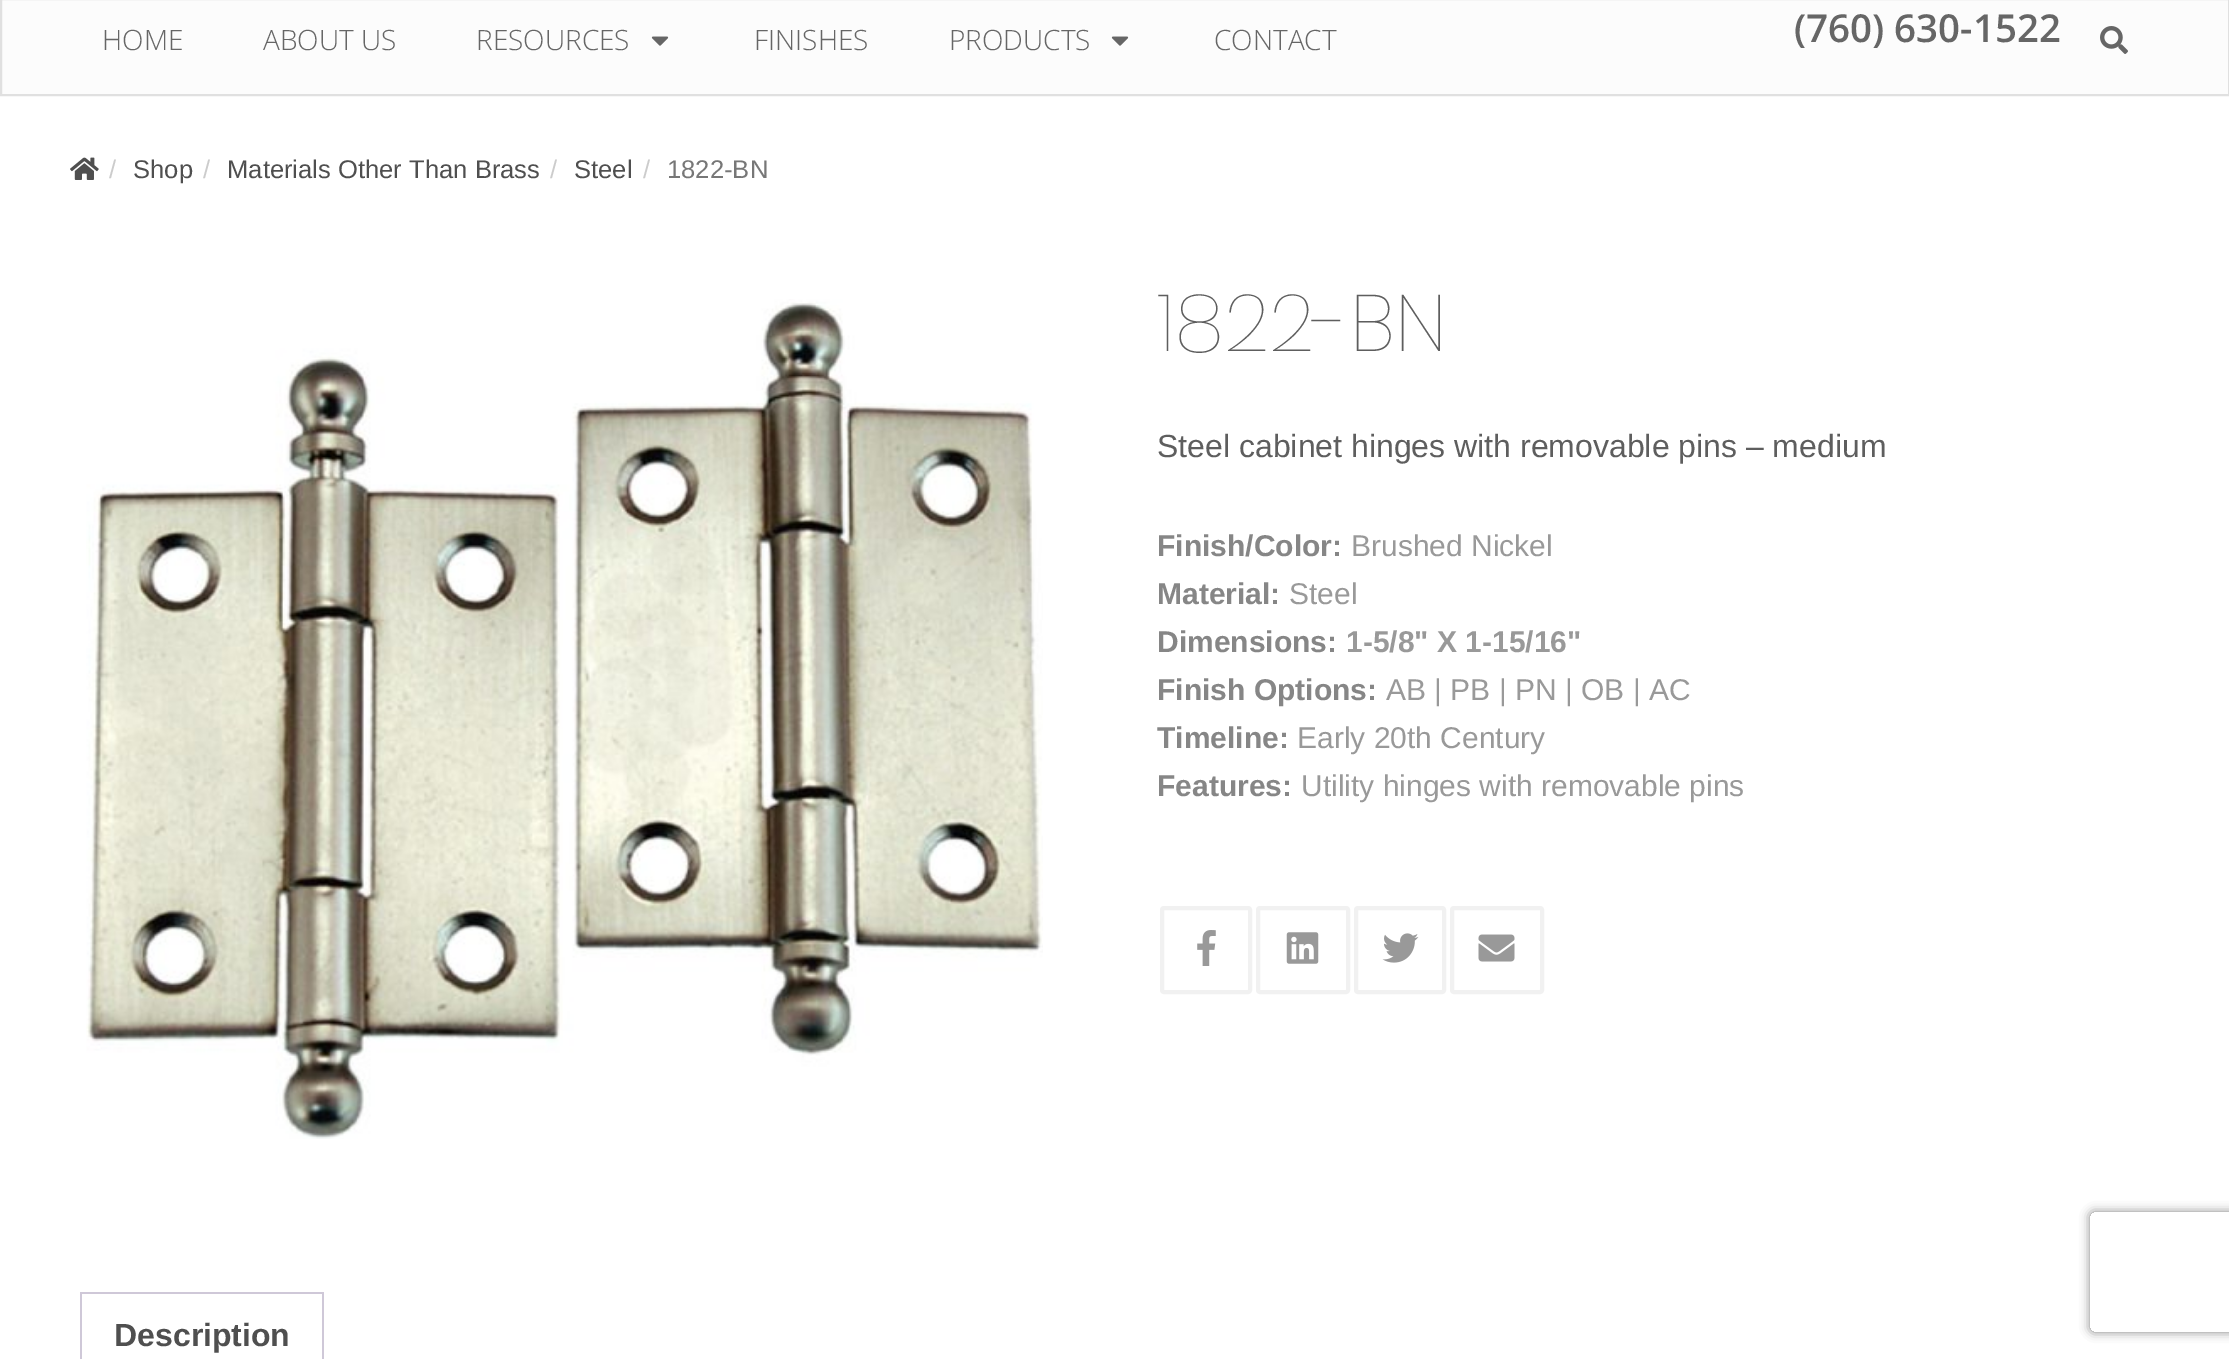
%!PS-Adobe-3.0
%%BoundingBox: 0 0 2229 1359
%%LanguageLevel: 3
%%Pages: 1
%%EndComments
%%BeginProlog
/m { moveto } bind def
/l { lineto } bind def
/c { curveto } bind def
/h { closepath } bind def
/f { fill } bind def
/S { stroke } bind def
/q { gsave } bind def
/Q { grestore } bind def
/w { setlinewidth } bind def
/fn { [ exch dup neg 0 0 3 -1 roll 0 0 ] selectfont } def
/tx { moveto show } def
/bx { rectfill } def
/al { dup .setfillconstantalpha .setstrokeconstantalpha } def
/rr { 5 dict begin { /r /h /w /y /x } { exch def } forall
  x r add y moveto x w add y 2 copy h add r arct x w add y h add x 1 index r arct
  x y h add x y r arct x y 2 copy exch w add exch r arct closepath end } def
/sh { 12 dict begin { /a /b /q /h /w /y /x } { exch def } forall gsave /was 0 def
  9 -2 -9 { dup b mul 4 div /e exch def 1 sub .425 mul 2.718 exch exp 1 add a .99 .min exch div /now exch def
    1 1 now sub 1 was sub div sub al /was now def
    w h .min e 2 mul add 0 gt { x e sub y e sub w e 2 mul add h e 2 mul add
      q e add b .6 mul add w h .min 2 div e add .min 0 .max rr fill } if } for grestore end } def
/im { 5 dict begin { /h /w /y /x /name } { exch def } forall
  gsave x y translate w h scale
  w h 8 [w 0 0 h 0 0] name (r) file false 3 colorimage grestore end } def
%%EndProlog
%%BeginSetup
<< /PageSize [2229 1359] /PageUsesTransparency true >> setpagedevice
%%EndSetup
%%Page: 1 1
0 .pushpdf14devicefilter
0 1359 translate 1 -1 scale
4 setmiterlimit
1 setgray
0 0 2229 1359 bx
0.988 setgray
1 -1 m 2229 -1 l 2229 95 l 1 95 l h q f Q
0.878 setgray
2 w
S
/OpenSans-Light 28 fn
0.4 setgray
(HOME) 102 50 tx
(ABOUT US) 263 50 tx
(RESOURCES) 476 50 tx
(image0.raw) 651 36 18 10 im
(FINISHES) 754 50 tx
(PRODUCTS) 949 50 tx
(image0.raw) 1111 36 18 10 im
(CONTACT) 1214 50 tx
(image1.raw) 2100 26 28 28 im
/OpenSans-SemiBold 38.5 fn
(\(760\) 630-1522) 1794 42 tx
(image2.raw) 70 157 29 23 im
/LiberationSans-Regular 25.6 fn
0.8 setgray
(/) 109 178 tx
0.31 setgray
(Shop) 133 178 tx
0.8 setgray
(/) 203 178 tx
0.31 setgray
(Materials Other Than Brass) 227 178 tx
0.8 setgray
(/) 550 178 tx
0.31 setgray
(Steel) 574 178 tx
0.8 setgray
(/) 643 178 tx
0.467 setgray
(1822-BN) 667 178 tx
(image3.raw) 86 299 957 840 im
/Poppins-Thin 80 fn
0.369 setgray
(1822-BN) 1157 351 tx
/LiberationSans-Regular 32 fn
(Steel cabinet hinges with removable pins – medium) 1157 457 tx
/LiberationSans-Bold 30 fn
0.525 setgray
(Finish/Color:) 1157 556 tx
/LiberationSans-Regular 30 fn
0.6 setgray
(Brushed Nickel) 1351 556 tx
/LiberationSans-Bold 30 fn
0.525 setgray
(Material:) 1157 604 tx
/LiberationSans-Regular 30 fn
0.6 setgray
(Steel) 1289 604 tx
/LiberationSans-Bold 30 fn
0.525 setgray
(Dimensions:) 1157 652 tx
0.6 setgray
(1-5/8" X 1-15/16") 1346 652 tx
0.525 setgray
(Finish Options:) 1157 700 tx
/LiberationSans-Regular 30 fn
0.6 setgray
(AB | PB | PN | OB | AC) 1386 700 tx
/LiberationSans-Bold 30 fn
0.525 setgray
(Timeline:) 1157 748 tx
/LiberationSans-Regular 30 fn
0.6 setgray
(Early 20th Century) 1297 748 tx
/LiberationSans-Bold 30 fn
0.525 setgray
(Features:) 1157 796 tx
/LiberationSans-Regular 30 fn
0.6 setgray
(Utility hinges with removable pins) 1301 796 tx
0.945 setgray
4 w
1162 908 88 84 2 rr S
(image4.raw) 1197 930 19 36 im
1258 908 90 84 2 rr S
(image5.raw) 1286 932 33 32 im
1356 908 88 84 2 rr S
(image6.raw) 1382 933 37 30 im
1452 908 90 84 2 rr S
(image7.raw) 1478 934 37 28 im
0.812 0.784 0.847 setrgbcolor
80 1292 244 2 bx
322 1292 2 67 bx
80 1292 2 67 bx
/LiberationSans-Bold 32 fn
0.31 setgray
(Description) 114 1346 tx
q
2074 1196 m 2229 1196 l 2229 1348 l 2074 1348 l h 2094 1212 m 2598 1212 l 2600 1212 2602 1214 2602 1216 c 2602 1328 l 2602 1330 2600 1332 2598 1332 c 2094 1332 l 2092 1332 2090 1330 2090 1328 c 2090 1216 l 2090 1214 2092 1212 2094 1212 c h eoclip newpath
0.502 setgray
2090 1212 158 120 4 5 1 sh
Q
.poppdf14devicefilter showpage
%%EOF
